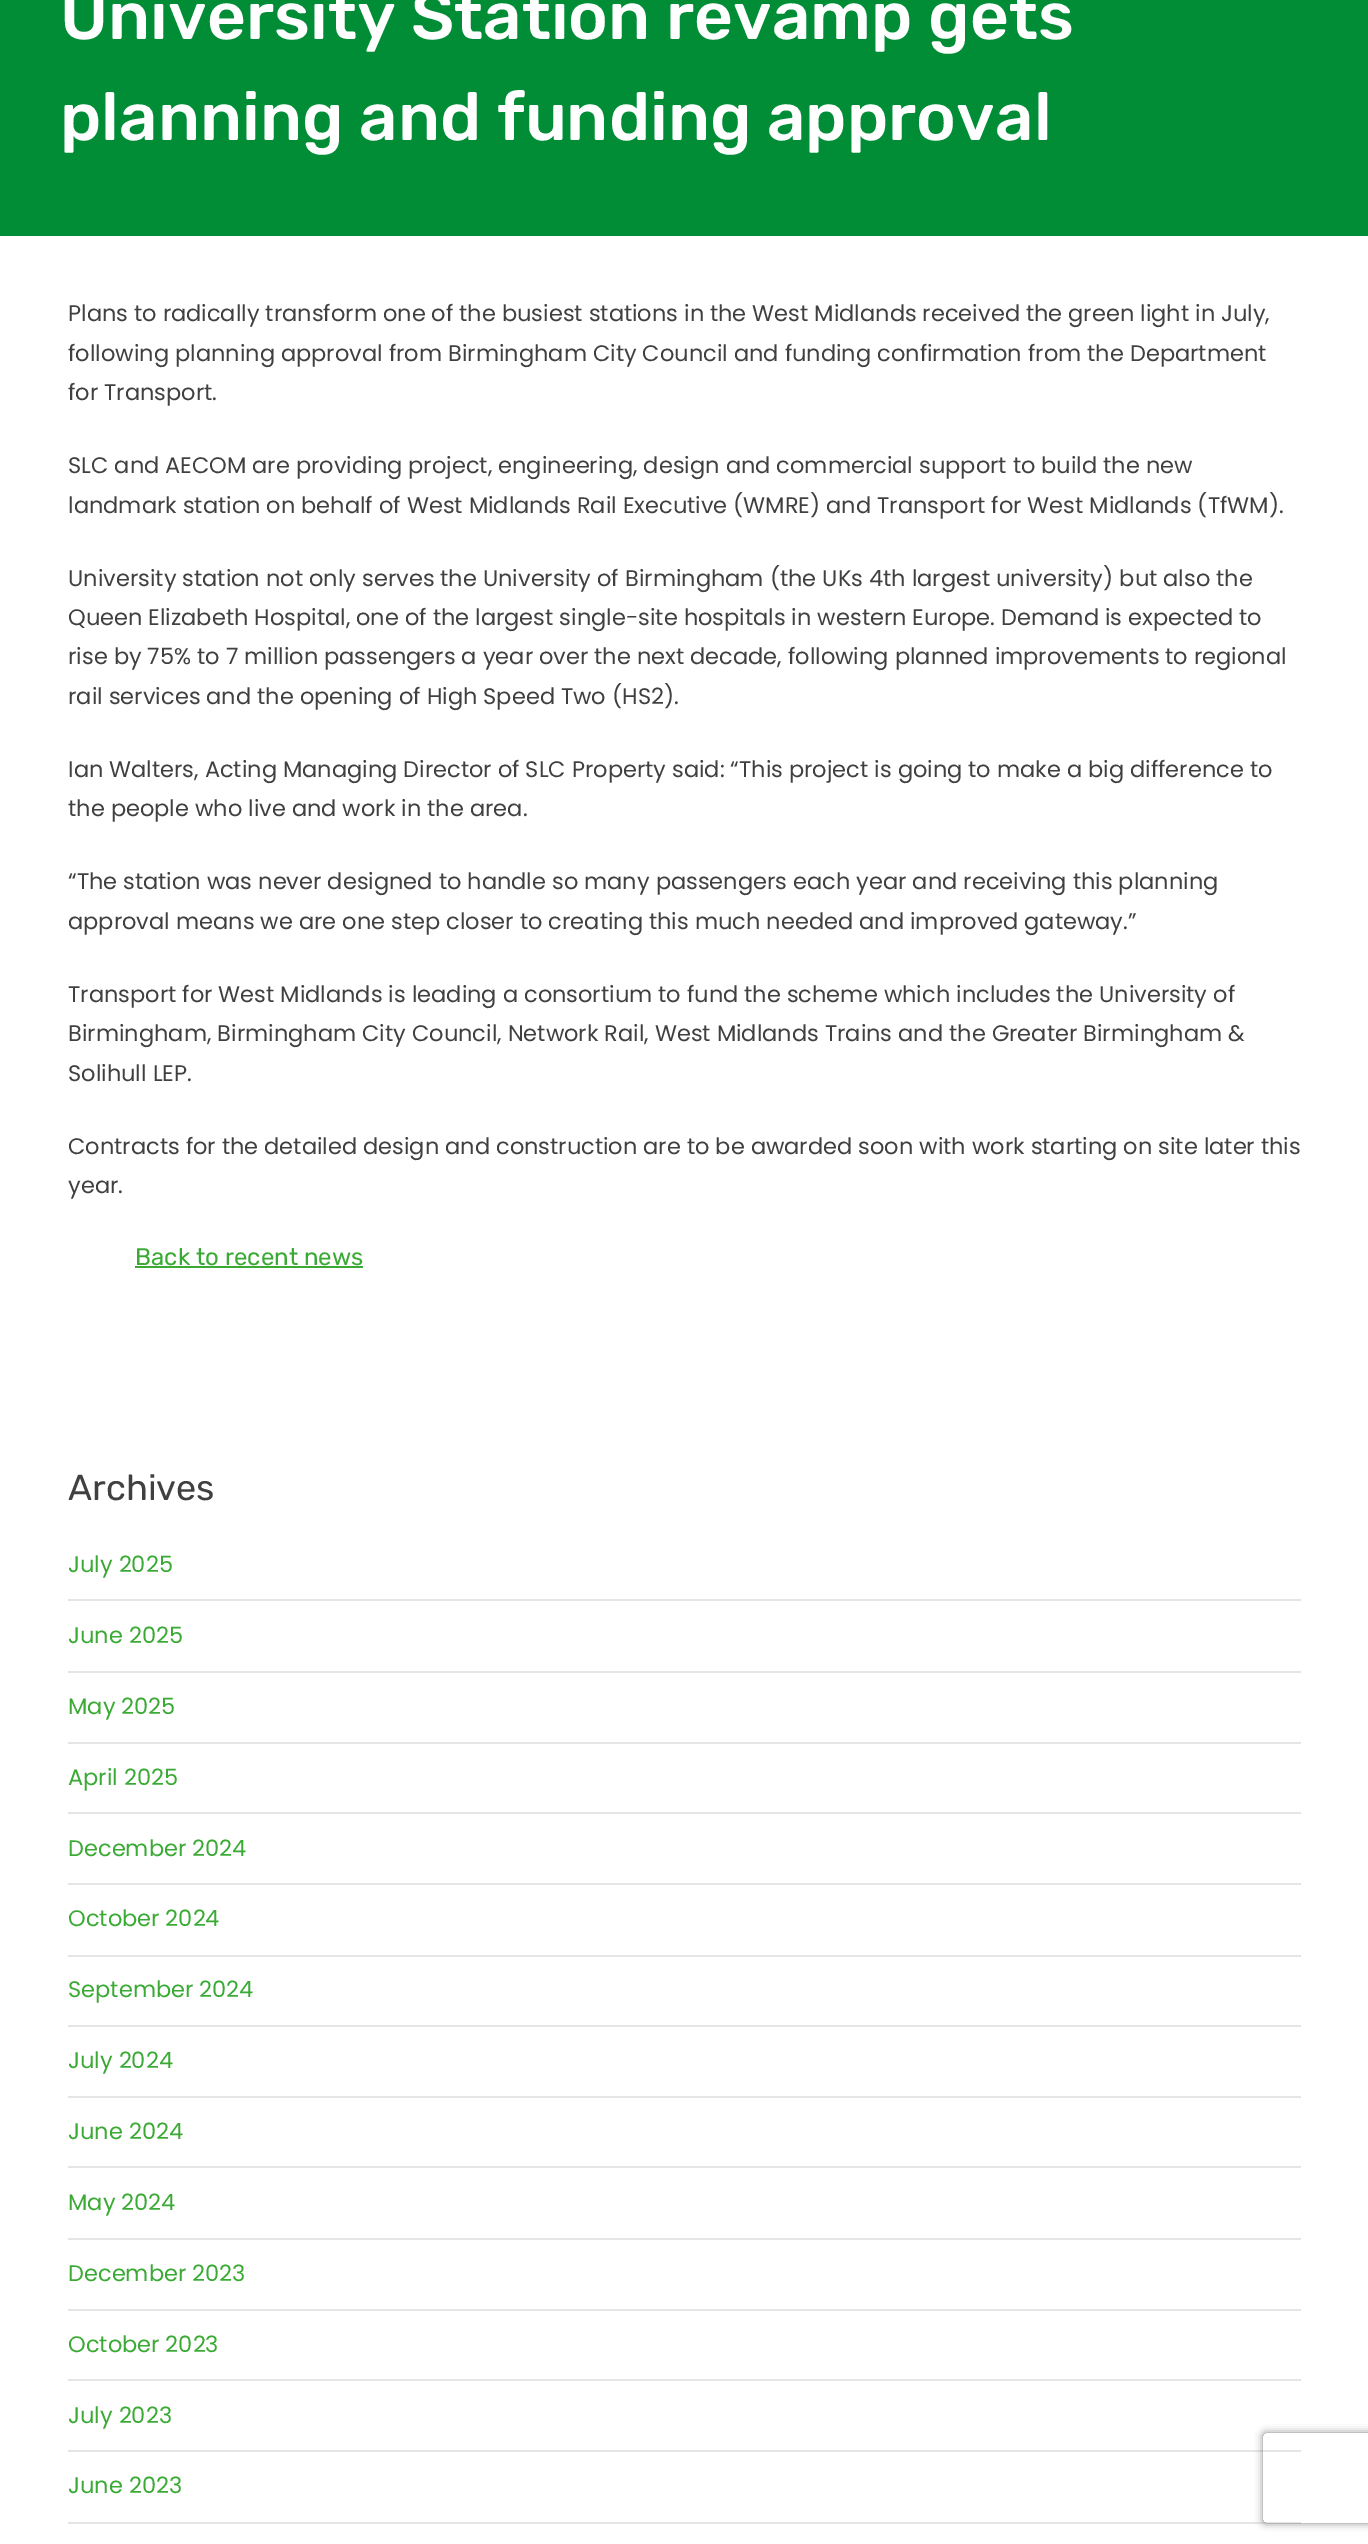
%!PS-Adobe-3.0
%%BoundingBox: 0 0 1368 2544
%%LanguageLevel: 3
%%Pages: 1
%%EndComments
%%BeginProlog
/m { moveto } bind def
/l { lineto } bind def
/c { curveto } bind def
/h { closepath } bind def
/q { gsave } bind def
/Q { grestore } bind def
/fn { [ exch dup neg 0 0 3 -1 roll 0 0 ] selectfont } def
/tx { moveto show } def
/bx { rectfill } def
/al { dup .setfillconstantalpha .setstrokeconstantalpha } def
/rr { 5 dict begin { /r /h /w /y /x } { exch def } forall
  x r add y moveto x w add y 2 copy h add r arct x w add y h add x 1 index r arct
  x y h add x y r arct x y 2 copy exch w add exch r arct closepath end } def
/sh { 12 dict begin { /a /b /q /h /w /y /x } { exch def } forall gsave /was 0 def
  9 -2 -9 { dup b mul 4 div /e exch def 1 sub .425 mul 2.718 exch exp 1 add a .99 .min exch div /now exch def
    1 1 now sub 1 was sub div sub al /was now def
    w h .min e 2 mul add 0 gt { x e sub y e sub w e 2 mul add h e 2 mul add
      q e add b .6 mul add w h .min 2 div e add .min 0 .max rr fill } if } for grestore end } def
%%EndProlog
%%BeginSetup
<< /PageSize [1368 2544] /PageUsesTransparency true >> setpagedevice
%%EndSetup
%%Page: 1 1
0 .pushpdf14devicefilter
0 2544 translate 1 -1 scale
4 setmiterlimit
1 setgray
0 0 1368 2544 bx
0 0.553 0.212 setrgbcolor
0 0 1368 236 bx
/Rubik-Medium 67.5 fn
1 setgray
(University Station revamp gets) 60 39 tx
(planning and funding approval) 60 140 tx
/Poppins-Regular 22.5 fn
0.251 setgray
(Plans to radically transform one of the busiest stations in the West Midlands received the green light in July,) 68 321 tx
(following planning approval from Birmingham City Council and funding confirmation from the Department) 68 361 tx
(for Transport.) 68 400 tx
(SLC and AECOM are providing project, engineering, design and commercial support to build the new) 68 473 tx
(landmark station on behalf of West Midlands Rail Executive \(WMRE\) and Transport for West Midlands \(TfWM\).) 68 513 tx
(University station not only serves the University of Birmingham \(the UKs 4th largest university\) but also the) 68 586 tx
(Queen Elizabeth Hospital, one of the largest single-site hospitals in western Europe. Demand is expected to) 68 625 tx
(rise by 75% to 7 million passengers a year over the next decade, following planned improvements to regional) 68 664 tx
(rail services and the opening of High Speed Two \(HS2\).) 68 704 tx
(Ian Walters, Acting Managing Director of SLC Property said: “This project is going to make a big difference to) 68 777 tx
(the people who live and work in the area.) 68 816 tx
(“The station was never designed to handle so many passengers each year and receiving this planning) 68 889 tx
(approval means we are one step closer to creating this much needed and improved gateway.”) 68 929 tx
(Transport for West Midlands is leading a consortium to fund the scheme which includes the University of) 68 1002 tx
(Birmingham, Birmingham City Council, Network Rail, West Midlands Trains and the Greater Birmingham &) 68 1041 tx
(Solihull LEP.) 68 1081 tx
(Contracts for the detailed design and construction are to be awarded soon with work starting on site later this) 68 1154 tx
(year.) 68 1193 tx
/Rubik-Regular 24 fn
0.227 0.667 0.208 setrgbcolor
(Back to recent news) 135 1265 tx
135 1266 228 2 bx
/Rubik-Regular 36 fn
0.251 setgray
(Archives) 68 1500 tx
0.898 setgray
68 1599 1233 2 bx
/Poppins-Regular 22.5 fn
0.227 0.667 0.208 setrgbcolor
(July 2025) 68 1572 tx
0.898 setgray
68 1671 1233 2 bx
0.227 0.667 0.208 setrgbcolor
(June 2025) 68 1643 tx
0.898 setgray
68 1742 1233 2 bx
0.227 0.667 0.208 setrgbcolor
(May 2025) 68 1714 tx
0.898 setgray
68 1812 1233 2 bx
0.227 0.667 0.208 setrgbcolor
(April 2025) 68 1785 tx
0.898 setgray
68 1883 1233 2 bx
0.227 0.667 0.208 setrgbcolor
(December 2024) 68 1856 tx
0.898 setgray
68 1955 1233 2 bx
0.227 0.667 0.208 setrgbcolor
(October 2024) 68 1926 tx
0.898 setgray
68 2025 1233 2 bx
0.227 0.667 0.208 setrgbcolor
(September 2024) 68 1997 tx
0.898 setgray
68 2096 1233 2 bx
0.227 0.667 0.208 setrgbcolor
(July 2024) 68 2068 tx
0.898 setgray
68 2166 1233 2 bx
0.227 0.667 0.208 setrgbcolor
(June 2024) 68 2139 tx
0.898 setgray
68 2238 1233 2 bx
0.227 0.667 0.208 setrgbcolor
(May 2024) 68 2210 tx
0.898 setgray
68 2309 1233 2 bx
0.227 0.667 0.208 setrgbcolor
(December 2023) 68 2281 tx
0.898 setgray
68 2379 1233 2 bx
0.227 0.667 0.208 setrgbcolor
(October 2023) 68 2352 tx
0.898 setgray
68 2450 1233 2 bx
0.227 0.667 0.208 setrgbcolor
(July 2023) 68 2423 tx
0.898 setgray
68 2522 1233 2 bx
0.227 0.667 0.208 setrgbcolor
(June 2023) 68 2493 tx
q
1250 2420 m 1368 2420 l 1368 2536 l 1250 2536 l h 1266 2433 m 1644 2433 l 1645.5 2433 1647 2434.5 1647 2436 c 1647 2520 l 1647 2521.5 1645.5 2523 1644 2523 c 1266 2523 l 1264.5 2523 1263 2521.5 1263 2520 c 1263 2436 l 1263 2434.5 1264.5 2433 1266 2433 c h eoclip newpath
0.502 setgray
1263 2433 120 90 3 4 1 sh
Q
.poppdf14devicefilter showpage
%%EOF
